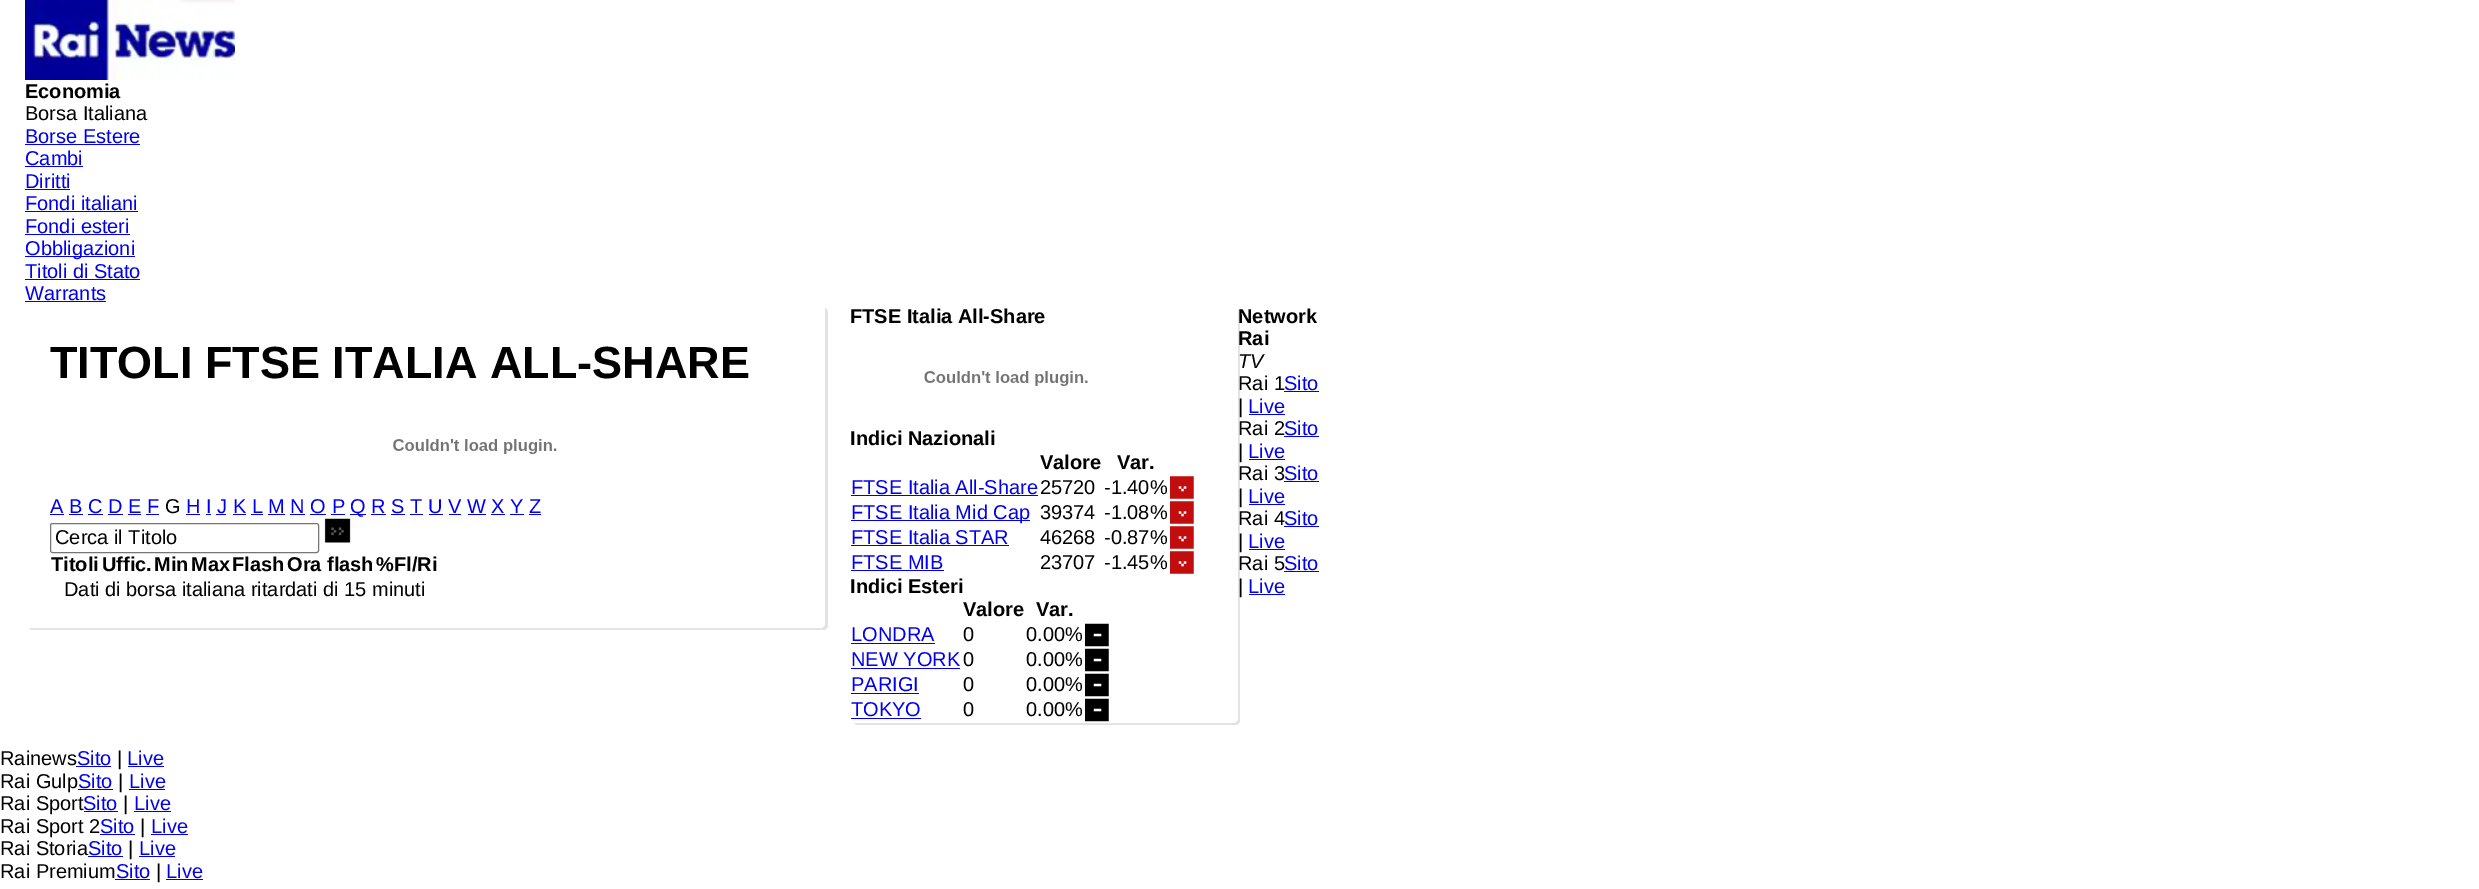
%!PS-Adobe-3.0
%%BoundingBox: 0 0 2479 889
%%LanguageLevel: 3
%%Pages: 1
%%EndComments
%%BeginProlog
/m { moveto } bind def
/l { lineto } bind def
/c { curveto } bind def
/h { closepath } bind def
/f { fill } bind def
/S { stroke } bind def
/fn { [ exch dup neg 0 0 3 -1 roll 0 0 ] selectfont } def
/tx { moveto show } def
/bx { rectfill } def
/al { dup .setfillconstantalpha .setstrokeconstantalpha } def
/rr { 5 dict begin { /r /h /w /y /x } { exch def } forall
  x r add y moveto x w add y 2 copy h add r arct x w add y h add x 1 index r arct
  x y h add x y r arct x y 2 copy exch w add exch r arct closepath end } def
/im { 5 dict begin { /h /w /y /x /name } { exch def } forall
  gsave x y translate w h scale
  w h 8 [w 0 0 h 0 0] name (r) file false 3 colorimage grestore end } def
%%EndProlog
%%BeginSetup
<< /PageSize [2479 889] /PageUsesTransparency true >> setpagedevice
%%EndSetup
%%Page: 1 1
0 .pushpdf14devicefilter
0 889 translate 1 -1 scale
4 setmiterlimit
1 setgray
0 0 2479 889 bx
(image0.raw) 25 0 210 80 im
/LiberationSans-Bold 20 fn
0 setgray
(Economia) 25 98 tx
/LiberationSans-Regular 20 fn
(Borsa Italiana) 25 120 tx
0 0 0.933 setrgbcolor
(Borse Estere) 25 143 tx
25 144 115 1 bx
(Cambi) 25 165 tx
25 166 58 1 bx
(Diritti) 25 188 tx
25 189 45 1 bx
(Fondi italiani) 25 210 tx
25 211 113 1 bx
(Fondi esteri) 25 233 tx
25 234 105 1 bx
25 256 110 1 bx
(Obbligazioni) 25 255 tx
(Titoli di Stato) 25 278 tx
25 279 115 1 bx
(Warrants) 25 300 tx
25 301 81 1 bx
0.89 setgray
29 627 m 29 629 31 630 33 630 c 823 630 l 826 630 828 628 828 625 c 828 313 l 828 311 827 309 825 308 c 825 622 l 825 625 823 627 820 628 c h f
1 setgray
25 305 800 323 5 rr f
/LiberationSans-Bold 45 fn
0 setgray
(TITOLI FTSE ITALIA ALL-SHARE) 50 378 tx
(image1.raw) 393 439 164 15 im
/LiberationSans-Regular 20 fn
0 0 0.933 setrgbcolor
(A B C D E F) 50 513 tx
50 514 14 1 bx
0 setgray
(G) 165 513 tx
0 0 0.933 setrgbcolor
(H I J K L M N O P) 186 513 tx
186 514 14 1 bx
350 514 16 1 bx
(Q R S T U V W X Y Z) 350 513 tx
69 514 14 1 bx
88 514 15 1 bx
108 514 15 1 bx
128 514 13 1 bx
146 514 13 1 bx
206 514 5 1 bx
216 514 10 1 bx
233 514 13 1 bx
251 514 12 1 bx
268 514 17 1 bx
290 514 15 1 bx
310 514 16 1 bx
331 514 14 1 bx
371 514 15 1 bx
391 514 14 1 bx
410 514 13 1 bx
429 514 14 1 bx
449 514 12 1 bx
468 514 18 1 bx
491 514 14 1 bx
510 514 14 1 bx
529 514 12 1 bx
0.463 setgray
50.5 523.5 268 29 2 rr S
0 setgray
(Cerca il Titolo) 55 544 tx
(image2.raw) 324 518 27 25 im
/LiberationSans-Bold 20 fn
(Titoli) 51 571 tx
(Uffic.) 102 571 tx
(Min) 154 571 tx
(Max) 191 571 tx
(Flash) 232 571 tx
(Ora flash) 287 571 tx
(%Fl/Ri) 376 571 tx
/LiberationSans-Regular 20 fn
(Dati di borsa italiana ritardati di 15 minuti) 64 596 tx
/LiberationSans-Bold 20 fn
(Network) 1238 323 tx
(Rai) 1238 345 tx
/LiberationSans-Italic 20 fn
(TV) 1238 368 tx
/LiberationSans-Regular 20 fn
(Rai 1) 1238 390 tx
(|) 1238 413 tx
(Rai 2) 1238 435 tx
(|) 1238 458 tx
(Rai 3) 1238 480 tx
(|) 1238 503 tx
(Rai 4) 1238 525 tx
(|) 1238 548 tx
(Rai 5) 1238 570 tx
(|) 1238 593 tx
0.2 al
0.451 setgray
854 722 m 854 724 856 725 858 725 c 1235 725 l 1238 725 1240 723 1240 720 c 1240 313 l 1240 311 1239 309 1237 309 c 1238 718 l 1237 720 1235 722 1232 722 c h f
1 al
1 setgray
850 305 388 418 5 rr f
/LiberationSans-Bold 20 fn
0 setgray
(FTSE Italia All-Share) 850 323 tx
(image3.raw) 924 371 164 15 im
(Indici Nazionali) 850 445 tx
(Valore) 1040 469 tx
(Var.) 1117 469 tx
/LiberationSans-Regular 20 fn
0 0 0.933 setrgbcolor
(FTSE Italia All-Share) 851 494 tx
851 495 187 1 bx
0 setgray
(25720) 1040 494 tx
(-1.40%) 1104 494 tx
(image4.raw) 1170 476 24 23 im
0 0 0.933 setrgbcolor
851 520 179 1 bx
(FTSE Italia Mid Cap) 851 519 tx
0 setgray
(39374) 1040 519 tx
(-1.08%) 1104 519 tx
(image4.raw) 1170 501 24 23 im
0 0 0.933 setrgbcolor
(FTSE Italia STAR) 851 544 tx
851 545 158 1 bx
0 setgray
(46268) 1040 544 tx
(-0.87%) 1104 544 tx
(image4.raw) 1170 526 24 23 im
0 0 0.933 setrgbcolor
(FTSE MIB) 851 569 tx
851 570 93 1 bx
0 setgray
(23707) 1040 569 tx
(-1.45%) 1104 569 tx
(image4.raw) 1170 551 24 23 im
/LiberationSans-Bold 20 fn
(Indici Esteri) 850 593 tx
(Valore) 963 616 tx
(Var.) 1036 616 tx
/LiberationSans-Regular 20 fn
0 0 0.933 setrgbcolor
(LONDRA) 851 641 tx
851 643 84 1 bx
0 setgray
(0) 963 641 tx
(0.00%) 1026 641 tx
(image5.raw) 1085 623 24 24 im
0 0 0.933 setrgbcolor
(NEW YORK) 851 666 tx
851 668 109 1 bx
0 setgray
(0) 963 666 tx
(0.00%) 1026 666 tx
(image5.raw) 1085 648 24 24 im
0 0 0.933 setrgbcolor
(PARIGI) 851 691 tx
851 693 68 1 bx
0 setgray
(0) 963 691 tx
(0.00%) 1026 691 tx
(image5.raw) 1085 673 24 24 im
0 0 0.933 setrgbcolor
(TOKYO) 851 716 tx
851 718 70 1 bx
0 setgray
(0) 963 716 tx
(0.00%) 1026 716 tx
(image5.raw) 1085 698 24 24 im
0 0 0.933 setrgbcolor
(Sito) 1284 390 tx
1284 391 35 1 bx
(Live) 1248 413 tx
1249 414 36 1 bx
(Sito) 1284 435 tx
1284 436 35 1 bx
(Live) 1248 458 tx
1249 459 36 1 bx
(Sito) 1284 480 tx
1284 481 35 1 bx
(Live) 1248 503 tx
1249 504 36 1 bx
(Sito) 1284 525 tx
1284 526 35 1 bx
(Live) 1248 548 tx
1249 549 36 1 bx
(Sito) 1284 570 tx
1284 571 35 1 bx
(Live) 1248 593 tx
1249 594 36 1 bx
0 setgray
(Rainews) 0 765 tx
0 0 0.933 setrgbcolor
(Sito) 77 765 tx
76 766 35 1 bx
0 setgray
(|) 117 765 tx
0 0 0.933 setrgbcolor
(Live) 127 765 tx
128 766 36 1 bx
0 setgray
(Rai Gulp) 0 788 tx
0 0 0.933 setrgbcolor
(Sito) 78 788 tx
78 789 35 1 bx
0 setgray
(|) 118 788 tx
0 0 0.933 setrgbcolor
(Live) 129 788 tx
129 789 36 1 bx
0 setgray
(Rai Sport) 0 810 tx
0 0 0.933 setrgbcolor
(Sito) 83 810 tx
84 811 34 1 bx
0 setgray
(|) 123 810 tx
0 0 0.933 setrgbcolor
(Live) 134 810 tx
134 811 37 1 bx
0 setgray
(Rai Sport 2) 0 833 tx
0 0 0.933 setrgbcolor
(Sito) 100 833 tx
100 834 35 1 bx
0 setgray
(|) 140 833 tx
0 0 0.933 setrgbcolor
(Live) 151 833 tx
151 834 37 1 bx
0 setgray
(Rai Storia) 0 855 tx
0 0 0.933 setrgbcolor
(Sito) 88 855 tx
88 856 35 1 bx
0 setgray
(|) 128 855 tx
0 0 0.933 setrgbcolor
(Live) 139 855 tx
139 856 36 1 bx
0 setgray
(Rai Premium) 0 878 tx
0 0 0.933 setrgbcolor
(Sito) 116 878 tx
115 879 35 1 bx
0 setgray
(|) 156 878 tx
0 0 0.933 setrgbcolor
(Live) 166 878 tx
166 879 37 1 bx
.poppdf14devicefilter showpage
%%EOF
